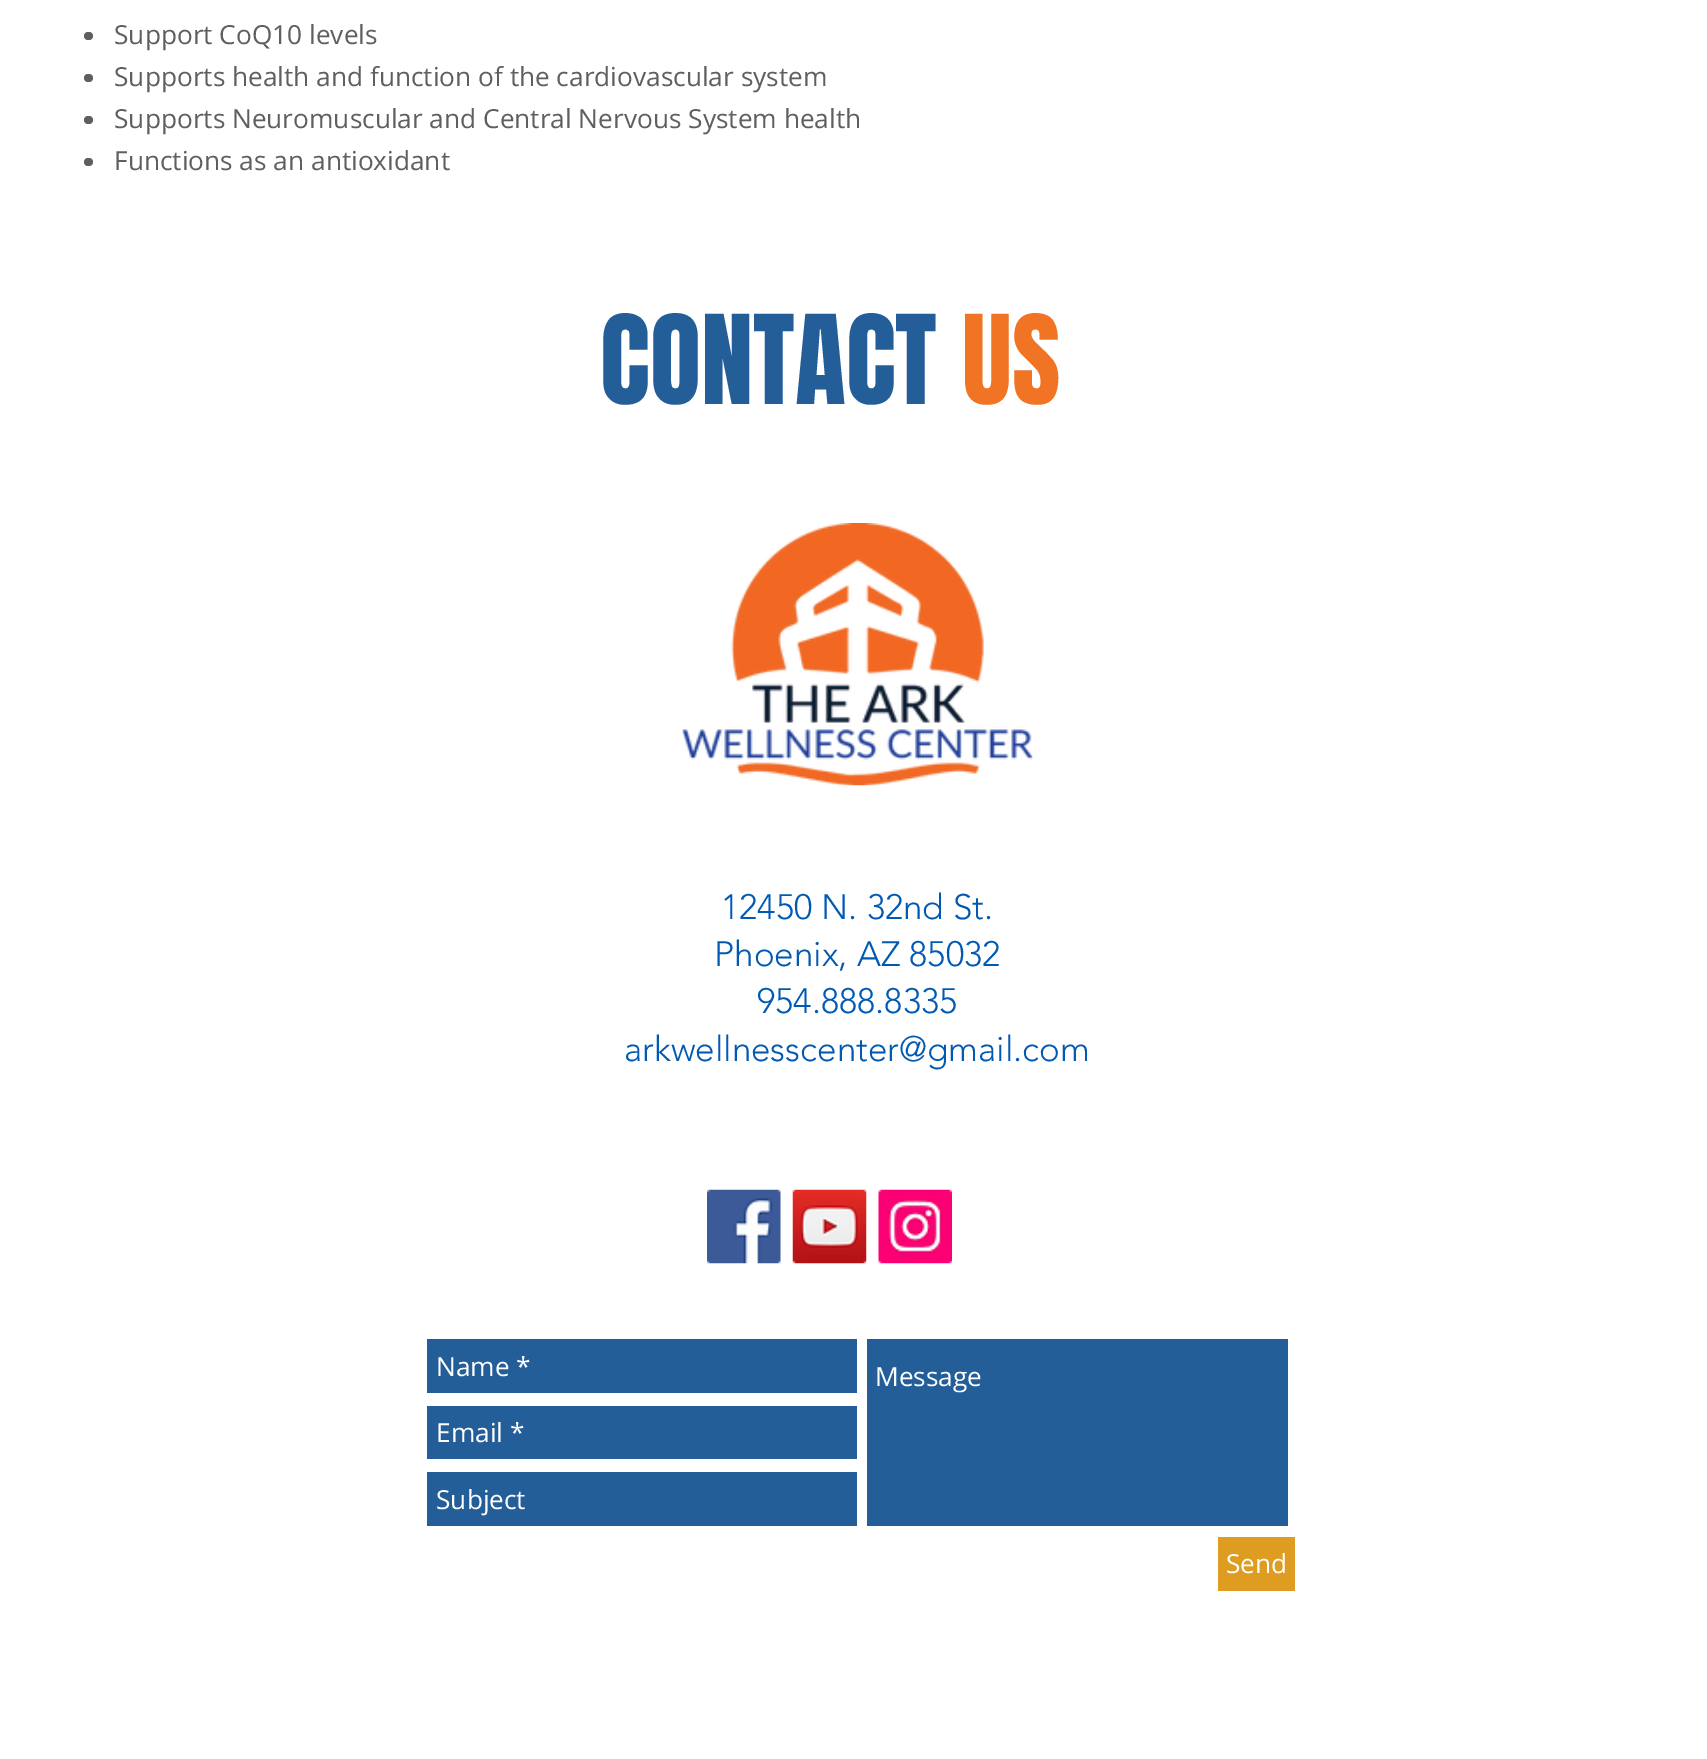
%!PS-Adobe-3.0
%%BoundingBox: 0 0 1707 1759
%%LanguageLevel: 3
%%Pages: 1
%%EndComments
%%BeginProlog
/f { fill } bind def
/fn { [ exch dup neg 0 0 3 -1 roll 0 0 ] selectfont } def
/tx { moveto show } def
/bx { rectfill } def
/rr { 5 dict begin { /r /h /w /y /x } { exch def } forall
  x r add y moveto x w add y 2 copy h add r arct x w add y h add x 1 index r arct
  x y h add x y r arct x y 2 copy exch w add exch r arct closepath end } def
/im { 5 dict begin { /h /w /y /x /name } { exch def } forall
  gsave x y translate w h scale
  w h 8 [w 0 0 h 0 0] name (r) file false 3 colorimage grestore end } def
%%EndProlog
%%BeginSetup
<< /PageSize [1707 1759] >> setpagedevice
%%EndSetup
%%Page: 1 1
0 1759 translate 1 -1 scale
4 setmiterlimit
1 setgray
0 0 1707 1759 bx
0.376 0.369 0.369 setrgbcolor
84 32 9 8 4 rr f
/OpenSans-Regular 26.25 fn
(Support CoQ10 levels) 114 44 tx
84 74 9 8 4 rr f
(Supports health and function of the cardiovascular system) 114 86 tx
84 116 9 8 4 rr f
(Supports Neuromuscular and Central Nervous System health) 114 128 tx
84 158 9 8 4 rr f
(Functions as an antioxidant) 114 170 tx
/Anton-Regular 105 fn
0.137 0.369 0.6 setrgbcolor
(CONTACT) 600 404 tx
0.941 0.455 0.137 setrgbcolor
(US) 962 404 tx
(image0.raw) 682 523 351 263 im
/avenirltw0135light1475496-Light 35 fn
0 0.349 0.702 setrgbcolor
(12450 N. 32nd St.) 721 919 tx
(Phoenix, AZ 85032) 714 966 tx
(954.888.8335) 757 1013 tx
(arkwellnesscenter@gmail.com) 624 1061 tx
(image1.raw) 707 1189 74 75 im
(image2.raw) 792 1189 75 75 im
(image3.raw) 878 1189 74 75 im
0.137 0.369 0.6 setrgbcolor
427 1339 430 54 bx
/OpenSans-Regular 26.25 fn
1 setgray
(Name *) 436 1376 tx
0.137 0.369 0.6 setrgbcolor
867 1339 421 187 bx
1 setgray
(Message) 875 1386 tx
0.137 0.369 0.6 setrgbcolor
427 1406 430 53 bx
1 setgray
(Email *) 436 1442 tx
0.137 0.369 0.6 setrgbcolor
427 1472 430 54 bx
1 setgray
(Subject) 436 1509 tx
0.871 0.612 0.129 setrgbcolor
1218 1537 77 54 bx
1 setgray
(Send) 1226 1573 tx
showpage
%%EOF
